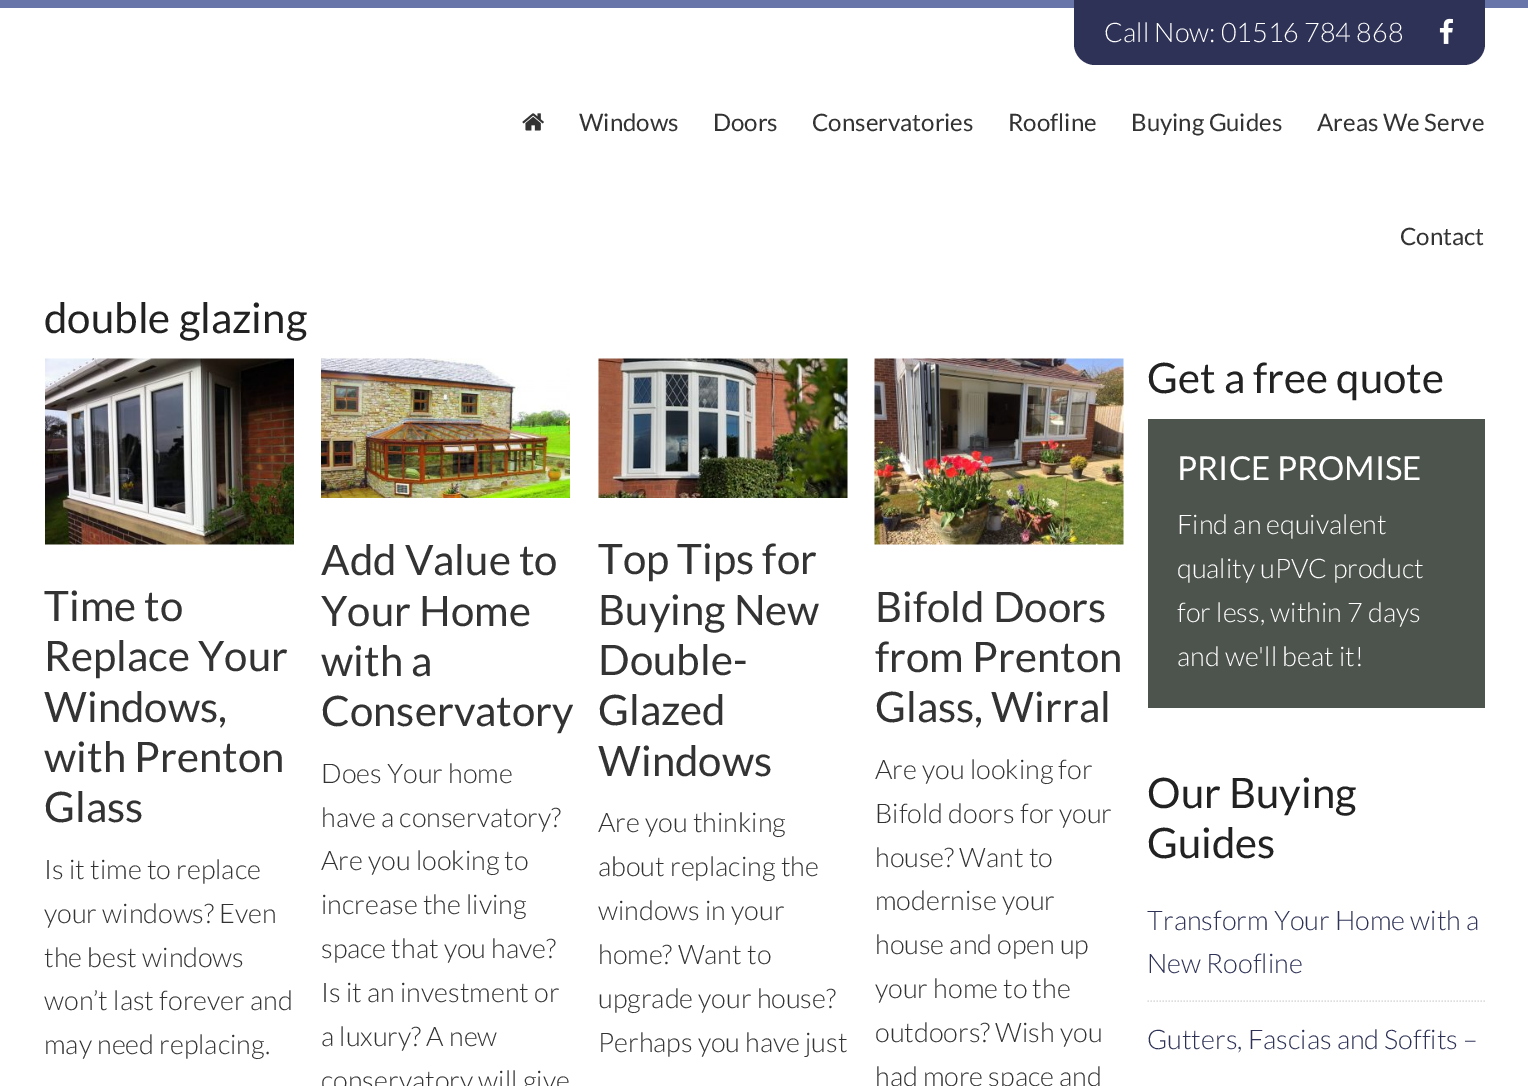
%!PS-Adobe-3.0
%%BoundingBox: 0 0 1528 1086
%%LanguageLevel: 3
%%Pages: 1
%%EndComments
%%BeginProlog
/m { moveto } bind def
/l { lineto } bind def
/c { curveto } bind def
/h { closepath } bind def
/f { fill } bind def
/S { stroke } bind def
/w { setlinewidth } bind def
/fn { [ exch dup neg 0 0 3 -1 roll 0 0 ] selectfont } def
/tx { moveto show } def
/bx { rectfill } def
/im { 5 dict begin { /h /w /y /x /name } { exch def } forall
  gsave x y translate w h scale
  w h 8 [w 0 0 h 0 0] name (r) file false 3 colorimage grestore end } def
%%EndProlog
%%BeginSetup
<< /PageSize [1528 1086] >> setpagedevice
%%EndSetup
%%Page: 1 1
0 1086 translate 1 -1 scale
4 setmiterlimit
1 setgray
0 0 1528 1086 bx
0.404 0.459 0.663 setrgbcolor
0 0 1528 8 bx
0.18 0.196 0.337 setrgbcolor
1074 0 m 1485 0 l 1485 44 l 1485 55.5 1475.5 65 1464 65 c 1095 65 l 1083.5 65 1074 55.5 1074 44 c h f
/Lato-Light 27 fn
1 setgray
(Call Now: 01516 784 868) 1104 42 tx
(image0.raw) 1439 18 14 26 im
(image1.raw) 522 113 22 18 im
/Lato-Regular 24 fn
0.2 setgray
(Windows) 579 131 tx
(Doors) 713 131 tx
(Conservatories) 812 131 tx
(Roofline) 1008 131 tx
(Buying Guides) 1131 131 tx
(Areas We Serve) 1317 131 tx
(Contact) 1400 245 tx
/Lato-Regular 42 fn
0.133 setgray
(double glazing) 44 333 tx
(image2.raw) 45 358 249 187 im
0.2 setgray
(Time to) 44 621 tx
(Replace Your) 44 671 tx
(Windows,) 44 722 tx
(with Prenton) 44 772 tx
(Glass) 44 822 tx
/Lato-Light 27 fn
(Is it time to replace) 44 879 tx
(your windows? Even) 44 923 tx
(the best windows) 44 967 tx
(won’t last forever and) 44 1010 tx
(may need replacing.) 44 1054 tx
(image3.raw) 321 358 249 140 im
/Lato-Regular 42 fn
(Add Value to) 321 575 tx
(Your Home) 321 626 tx
(with a) 321 676 tx
(Conservatory) 321 726 tx
/Lato-Light 27 fn
(Does Your home) 321 783 tx
(have a conservatory?) 321 827 tx
(Are you looking to) 321 870 tx
(increase the living) 321 914 tx
(space that you have?) 321 958 tx
(Is it an investment or) 321 1002 tx
(a luxury? A new) 321 1046 tx
(conservatory will give) 321 1090 tx
(image4.raw) 598 358 250 140 im
/Lato-Regular 42 fn
(Top Tips for) 598 574 tx
(Buying New) 598 625 tx
(Double-) 598 675 tx
(Glazed) 598 725 tx
(Windows) 598 776 tx
/Lato-Light 27 fn
(Are you thinking) 598 832 tx
(about replacing the) 598 876 tx
(windows in your) 598 920 tx
(home? Want to) 598 964 tx
(upgrade your house?) 598 1008 tx
(Perhaps you have just) 598 1052 tx
(image5.raw) 874 358 250 187 im
/Lato-Regular 42 fn
(Bifold Doors) 875 622 tx
(from Prenton) 875 672 tx
(Glass, Wirral) 875 722 tx
/Lato-Light 27 fn
(Are you looking for) 875 779 tx
(Bifold doors for your) 875 823 tx
(house? Want to) 875 867 tx
(modernise your) 875 910 tx
(house and open up) 875 954 tx
(your home to the) 875 998 tx
(outdoors? Wish you) 875 1042 tx
(had more space and) 875 1086 tx
/Lato-Regular 42 fn
0.133 setgray
(Get a free quote) 1147 393 tx
0.302 0.325 0.302 setrgbcolor
1148 419 337 289 bx
/Lato-Regular 33 fn
1 setgray
(PRICE PROMISE) 1177 480 tx
/Lato-Light 27 fn
(Find an equivalent) 1177 534 tx
(quality uPVC product) 1177 578 tx
(for less, within 7 days) 1177 622 tx
(and we'll beat it!) 1177 666 tx
/Lato-Regular 42 fn
0.133 setgray
(Our Buying) 1147 808 tx
(Guides) 1147 858 tx
0.867 setgray
1.5 w
[1.5 1.5] 0 setdash
1147.5 1001 m 1485 1001 l S
/Lato-Light 27 fn
0.18 0.196 0.337 setrgbcolor
(Transform Your Home with a) 1147 930 tx
(New Roofline) 1147 973 tx
(Gutters, Fascias and Soffits –) 1147 1049 tx
showpage
%%EOF
